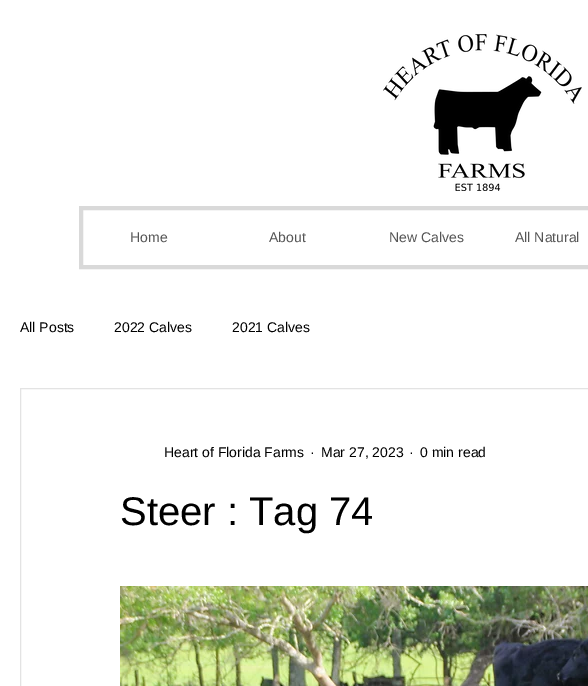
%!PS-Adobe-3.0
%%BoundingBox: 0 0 588 686
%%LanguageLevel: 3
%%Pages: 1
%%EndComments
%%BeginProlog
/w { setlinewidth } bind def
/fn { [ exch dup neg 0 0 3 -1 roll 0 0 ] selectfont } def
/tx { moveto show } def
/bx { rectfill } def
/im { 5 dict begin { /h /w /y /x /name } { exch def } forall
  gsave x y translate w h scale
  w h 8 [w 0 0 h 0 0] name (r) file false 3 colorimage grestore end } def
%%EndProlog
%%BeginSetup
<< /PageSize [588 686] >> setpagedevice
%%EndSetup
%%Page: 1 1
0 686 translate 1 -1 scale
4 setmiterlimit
1 setgray
0 0 588 686 bx
(image0.raw) 383 34 199 157 im
0.851 setgray
4 w
81 208 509 59 rectstroke
/LiberationSans-Regular 14 fn
0.333 setgray
(Home) 130 242 tx
(About) 269 242 tx
(New Calves) 389 242 tx
(All Natural) 515 242 tx
0 setgray
(All Posts) 20 332 tx
(2022 Calves) 114 332 tx
(2021 Calves) 232 332 tx
0.89 setgray
1 w
20.5 388.5 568 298 rectstroke
0 setgray
(Heart of Florida Farms) 164 457 tx
(·) 310 457 tx
(Mar 27, 2023) 321 457 tx
(·) 409 457 tx
(0 min read) 420 457 tx
/LiberationSans-Regular 40 fn
(Steer : Tag 74) 120 525 tx
(image1.raw) 120 586 468 100 im
showpage
%%EOF
